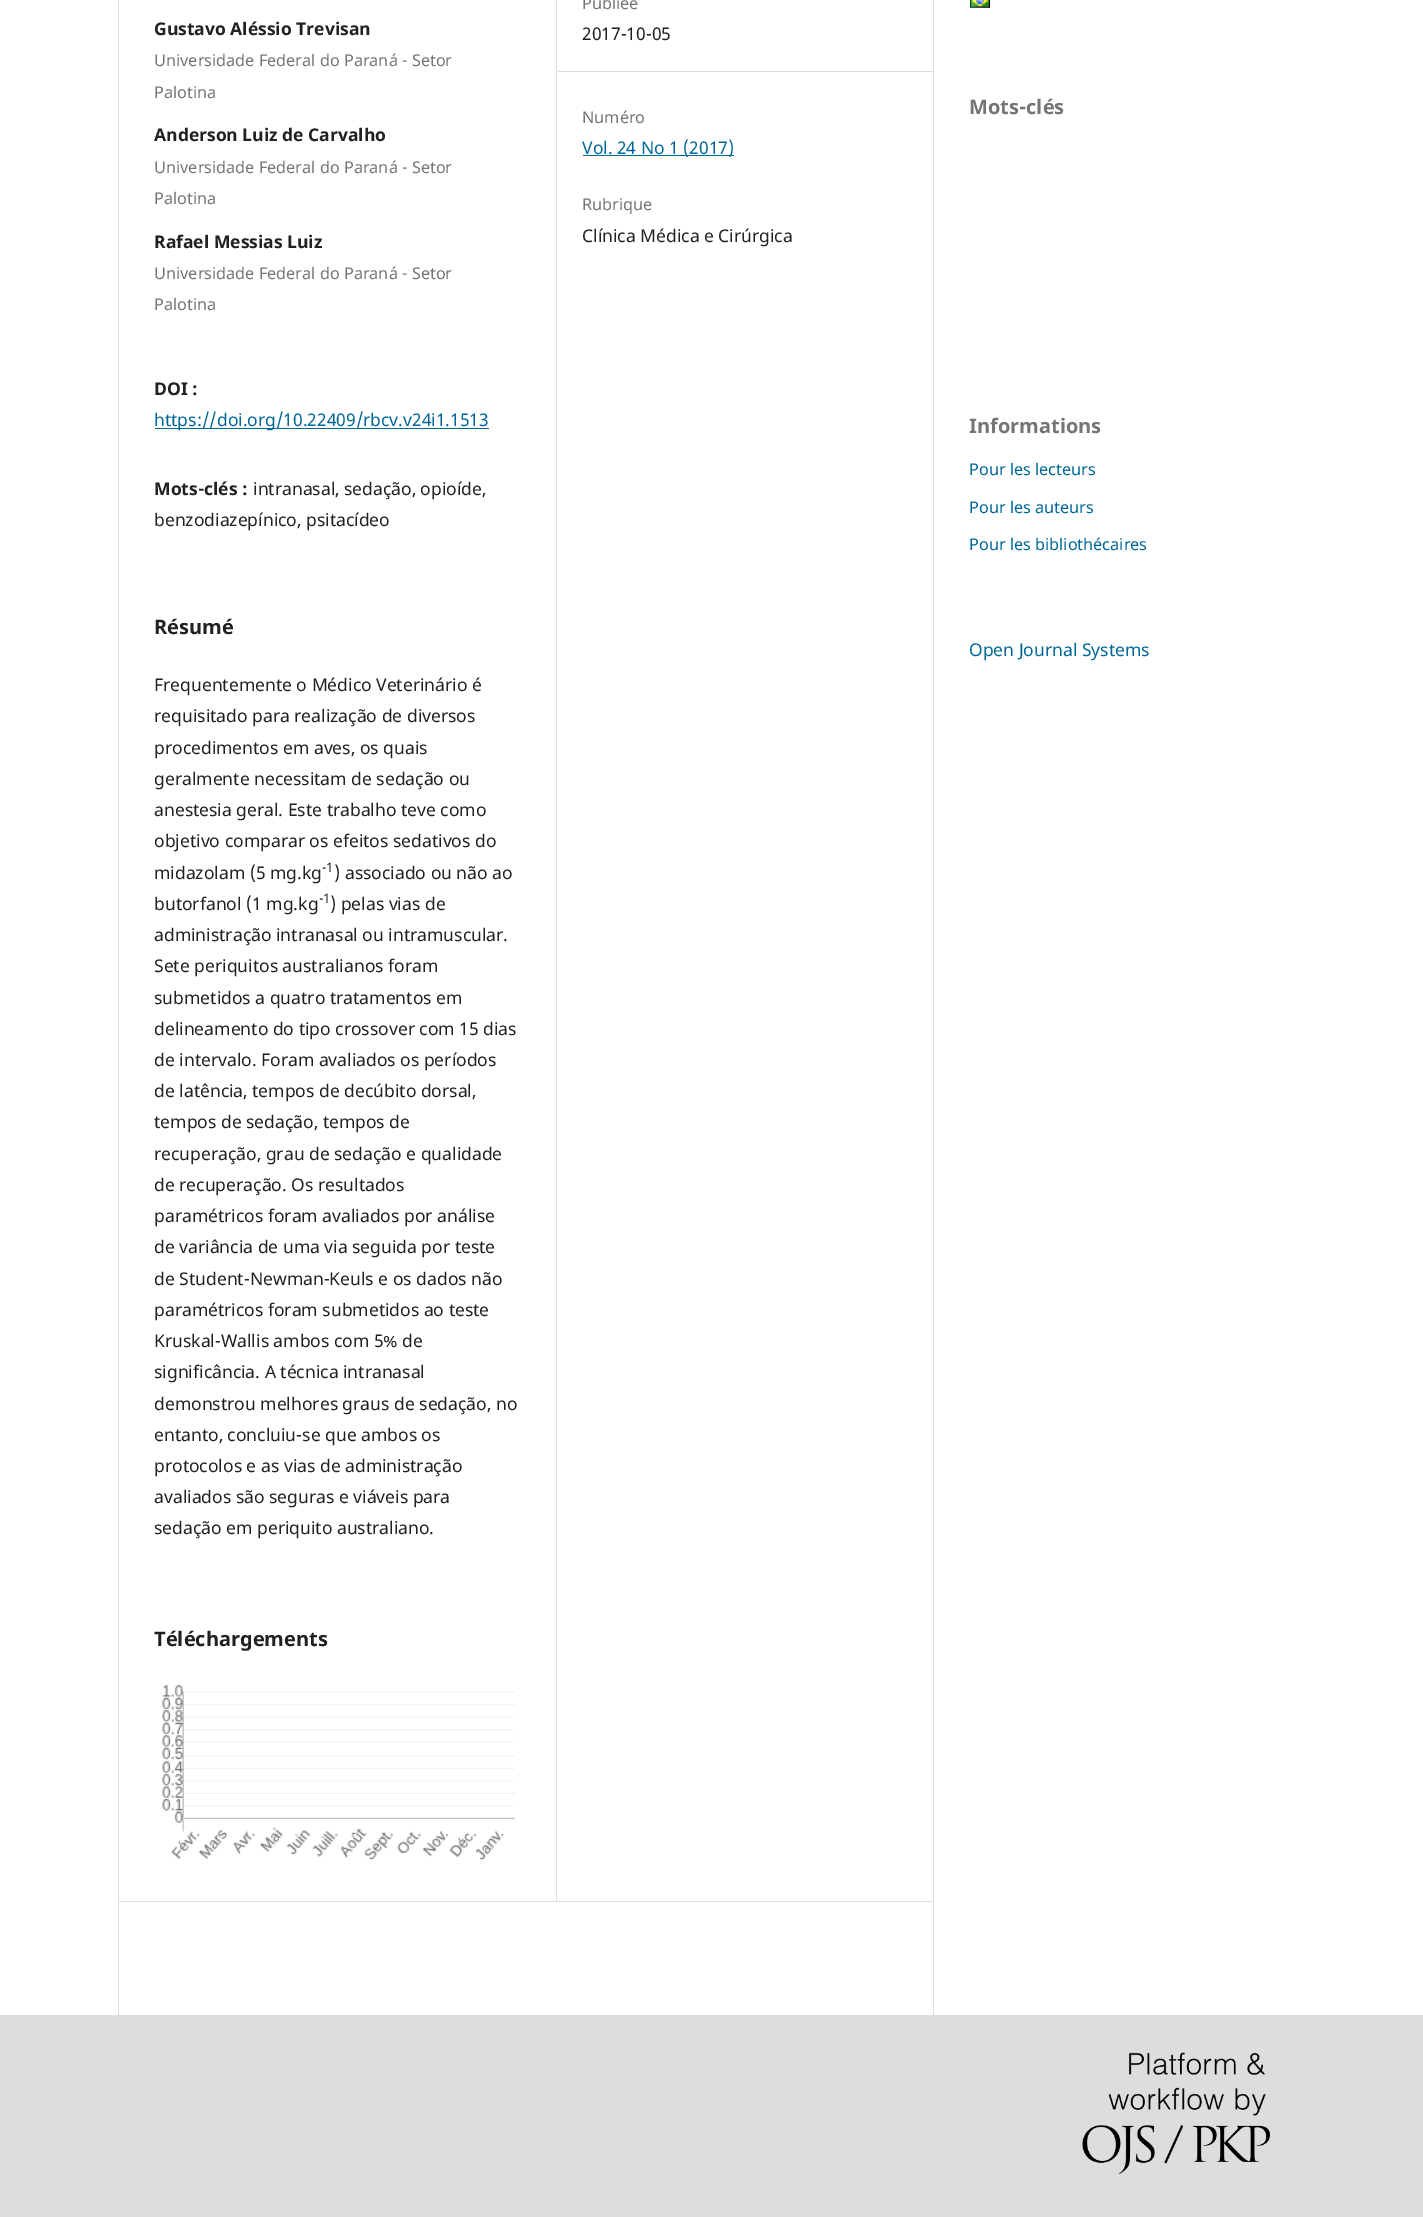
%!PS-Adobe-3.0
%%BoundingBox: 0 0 1423 2217
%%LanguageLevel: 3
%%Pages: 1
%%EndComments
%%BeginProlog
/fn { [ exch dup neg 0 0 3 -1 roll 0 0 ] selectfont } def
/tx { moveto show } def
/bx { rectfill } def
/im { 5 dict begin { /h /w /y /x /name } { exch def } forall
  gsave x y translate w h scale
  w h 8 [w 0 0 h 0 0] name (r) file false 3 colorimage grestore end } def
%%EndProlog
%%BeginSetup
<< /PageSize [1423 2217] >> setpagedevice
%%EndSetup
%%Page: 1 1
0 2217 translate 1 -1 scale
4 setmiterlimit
1 setgray
0 0 1423 2217 bx
0.867 setgray
118 1901 815 1 bx
118 0 1 2015 bx
556 0 1 1901 bx
/NotoSans-Bold 17.5 fn
0.129 setgray
(Gustavo Aléssio Trevisan) 154 35 tx
/NotoSans-Regular 16.25 fn
0.459 setgray
(Universidade Federal do Paraná - Setor) 154 66 tx
(Palotina) 154 98 tx
/NotoSans-Bold 17.5 fn
0.129 setgray
(Anderson Luiz de Carvalho) 154 141 tx
/NotoSans-Regular 16.25 fn
0.459 setgray
(Universidade Federal do Paraná - Setor) 154 173 tx
(Palotina) 154 204 tx
/NotoSans-Bold 17.5 fn
0.129 setgray
(Rafael Messias Luiz) 154 248 tx
/NotoSans-Regular 16.25 fn
0.459 setgray
(Universidade Federal do Paraná - Setor) 154 279 tx
(Palotina) 154 310 tx
/NotoSans-Bold 17.5 fn
0.129 setgray
(DOI :) 154 395 tx
0 0.404 0.596 setrgbcolor
155 428 334 1 bx
/NotoSans-Regular 17.5 fn
(https://doi.org/10.22409/rbcv.v24i1.1513) 154 426 tx
/NotoSans-Bold 17.5 fn
0.129 setgray
(Mots-clés :) 154 495 tx
/NotoSans-Regular 17.5 fn
(intranasal, sedação, opioíde,) 253 495 tx
(benzodiazepínico, psitacídeo) 154 526 tx
/NotoSans-Bold 20 fn
(Résumé) 154 634 tx
/NotoSans-Regular 17.5 fn
(Frequentemente o Médico Veterinário é) 154 691 tx
(requisitado para realização de diversos) 154 722 tx
(procedimentos em aves, os quais) 154 754 tx
(geralmente necessitam de sedação ou) 154 785 tx
(anestesia geral. Este trabalho teve como) 154 816 tx
(objetivo comparar os efeitos sedativos do) 154 847 tx
(midazolam \(5 mg.kg) 154 879 tx
/NotoSans-Regular 13 fn
(-1) 322 872 tx
/NotoSans-Regular 17.5 fn
(\) associado ou não ao) 334 879 tx
(butorfanol \(1 mg.kg) 154 910 tx
/NotoSans-Regular 13 fn
(-1) 319 903 tx
/NotoSans-Regular 17.5 fn
(\) pelas vias de) 330 910 tx
(administração intranasal ou intramuscular.) 154 941 tx
(Sete periquitos australianos foram) 154 972 tx
(submetidos a quatro tratamentos em) 154 1004 tx
(delineamento do tipo crossover com 15 dias) 154 1035 tx
(de intervalo. Foram avaliados os períodos) 154 1066 tx
(de latência, tempos de decúbito dorsal,) 154 1097 tx
(tempos de sedação, tempos de) 154 1128 tx
(recuperação, grau de sedação e qualidade) 154 1160 tx
(de recuperação. Os resultados) 154 1191 tx
(paramétricos foram avaliados por análise) 154 1222 tx
(de variância de uma via seguida por teste) 154 1253 tx
(de Student-Newman-Keuls e os dados não) 154 1285 tx
(paramétricos foram submetidos ao teste) 154 1316 tx
(Kruskal-Wallis ambos com 5% de) 154 1347 tx
(significância. A técnica intranasal) 154 1378 tx
(demonstrou melhores graus de sedação, no) 154 1410 tx
(entanto, concluiu-se que ambos os) 154 1441 tx
(protocolos e as vias de administração) 154 1472 tx
(avaliados são seguras e viáveis para) 154 1503 tx
(sedação em periquito australiano.) 154 1534 tx
/NotoSans-Bold 20 fn
(Téléchargements) 154 1646 tx
(image0.raw) 162 1685 354 176 im
0.867 setgray
558 71 375 1 bx
/NotoSans-Regular 16.25 fn
0.459 setgray
(Publiée) 582 9 tx
/NotoSans-Regular 17.5 fn
0.129 setgray
(2017-10-05) 582 40 tx
/NotoSans-Regular 16.25 fn
0.459 setgray
(Numéro) 582 123 tx
0 0.404 0.596 setrgbcolor
583 155 151 1 bx
/NotoSans-Regular 17.5 fn
(Vol. 24 No 1 \(2017\)) 582 154 tx
/NotoSans-Regular 16.25 fn
0.459 setgray
(Rubrique) 582 210 tx
/NotoSans-Regular 17.5 fn
0.129 setgray
(Clínica Médica e Cirúrgica) 582 242 tx
0.867 setgray
933 0 1 2015 bx
(image1.raw) 970 0 20 8 im
/NotoSans-Bold 20 fn
0.459 setgray
(Mots-clés) 969 114 tx
(Informations) 969 433 tx
/NotoSans-Regular 16.25 fn
0 0.404 0.596 setrgbcolor
(Pour les lecteurs) 969 475 tx
(Pour les auteurs) 969 513 tx
(Pour les bibliothécaires) 969 550 tx
/NotoSans-Regular 17.5 fn
(Open Journal Systems) 969 656 tx
0.867 setgray
0 2015 1423 202 bx
(image2.raw) 1082 2052 188 122 im
showpage
%%EOF
